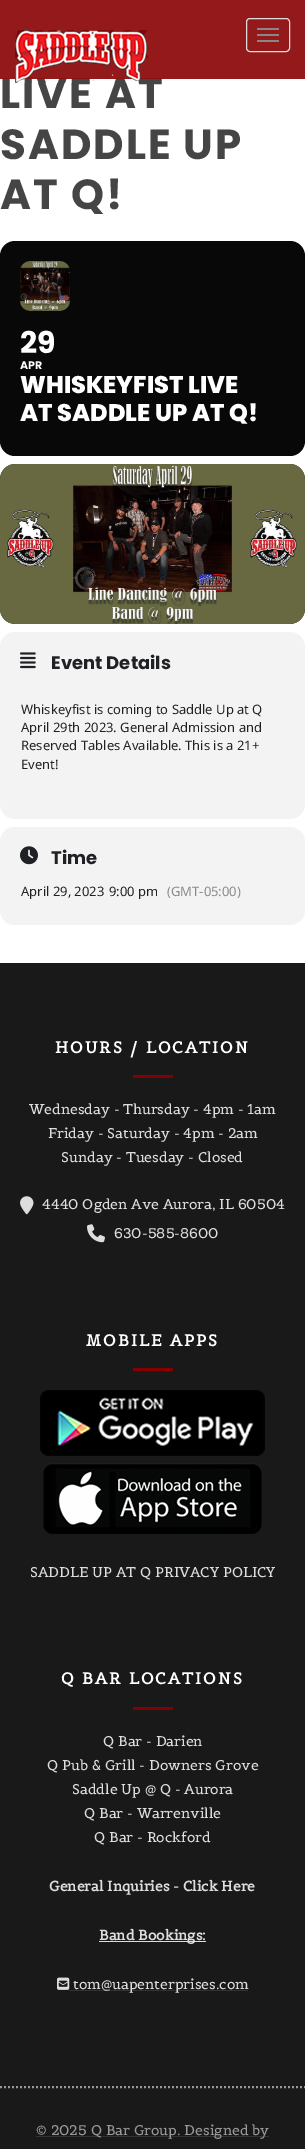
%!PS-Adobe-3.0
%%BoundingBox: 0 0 305 2149
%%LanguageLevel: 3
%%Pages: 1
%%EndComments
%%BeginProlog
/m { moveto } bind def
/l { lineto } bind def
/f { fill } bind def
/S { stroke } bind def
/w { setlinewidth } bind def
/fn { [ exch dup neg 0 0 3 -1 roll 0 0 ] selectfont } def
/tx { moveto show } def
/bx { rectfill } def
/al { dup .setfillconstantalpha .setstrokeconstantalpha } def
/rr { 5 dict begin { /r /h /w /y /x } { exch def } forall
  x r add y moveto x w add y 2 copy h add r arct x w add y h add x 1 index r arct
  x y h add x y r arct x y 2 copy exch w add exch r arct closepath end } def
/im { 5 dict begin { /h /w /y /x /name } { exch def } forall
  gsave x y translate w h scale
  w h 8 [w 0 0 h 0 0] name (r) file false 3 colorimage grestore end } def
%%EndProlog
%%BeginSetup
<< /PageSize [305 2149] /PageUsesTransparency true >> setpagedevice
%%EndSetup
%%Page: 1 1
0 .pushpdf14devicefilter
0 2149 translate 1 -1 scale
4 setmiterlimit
1 setgray
0 0 305 2149 bx
/Poppins-Bold 42 fn
0.271 setgray
0 108 m 2 0 (LIVE AT) ashow
0.9 al
0.529 0 0.004 setrgbcolor
0 0 305 79 bx
1 al
(image0.raw) 15 30 133 53 im
0.867 setgray
246.5 18.5 43 33 3.5 rr S
0.533 setgray
257 28 22 2 1 rr f
257 34 22 2 1 rr f
257 40 22 2 1 rr f
0.271 setgray
0 159 m 2 0 (SADDLE UP) ashow
0 209 m 2 0 (AT Q!) ashow
0.031 setgray
0 241 305 215 15 rr f
(image1.raw) 20 261 50 50 im
/Poppins-Bold 30 fn
1 setgray
(29) 20 353 tx
/Poppins-Bold 11 fn
(APR) 20 369 tx
/Poppins-ExtraBold 24 fn
(WHISKEYFIST LIVE) 20 393 tx
(AT SADDLE UP AT Q!) 20 421 tx
0.2 setgray
0 464 305 160 15 rr f
(image2.raw) 0 464 305 160 im
0.953 setgray
0 632 305 187 15 rr f
(image3.raw) 20 652 16 17 im
/Poppins-Bold 18 fn
0.125 0.129 0.141 setrgbcolor
(Event Details) 51 669 tx
/NotoSans-Regular 13 fn
(Whiskeyfist is coming to Saddle Up at Q) 21 714 tx
(April 29th 2023. General Admission and) 21 732 tx
(Reserved Tables Available. This is a 21+) 21 750 tx
(Event!) 21 769 tx
0.953 setgray
0 827 305 98 15 rr f
(image4.raw) 20 846 18 19 im
/Poppins-Bold 18 fn
0.125 0.129 0.141 setrgbcolor
(Time) 51 864 tx
/NotoSans-Regular 13 fn
(April 29, 2023) 21 896 tx
(9:00 pm) 109 896 tx
0.541 0.541 0.549 setrgbcolor
(\(GMT-05:00\)) 167 896 tx
0.098 setgray
0 963 305 1186 bx
0.6 setgray
2 w
[2 2] 0 setdash
0 2087 m 305 2087 l S
/Belgrano-Bold 16 fn
1 setgray
55 1053 m 2 0 (HOURS / LOCATION) ashow
0.529 0 0.004 setrgbcolor
133 1075 40 3 bx
/Belgrano-Regular 14 fn
0.867 setgray
(Wednesday - Thursday - 4pm - 1am) 29 1114 tx
(Friday - Saturday - 4pm - 2am) 48 1138 tx
(Sunday - Tuesday - Closed) 61 1162 tx
(image5.raw) 20 1196 14 19 im
(4440 Ogden Ave Aurora, IL 60504) 42 1209 tx
(image6.raw) 87 1224 18 19 im
(630-585-8600) 114 1238 tx
/Belgrano-Bold 16 fn
1 setgray
86 1346 m 2 0 (MOBILE APPS) ashow
0.529 0 0.004 setrgbcolor
133 1368 40 3 bx
(image7.raw) 40 1390 225 66 im
(image8.raw) 43 1463 219 71 im
/Belgrano-Regular 14 fn
0.867 setgray
(SADDLE UP AT Q PRIVACY POLICY) 30 1577 tx
/Belgrano-Bold 16 fn
1 setgray
61 1684 m 2 0 (Q BAR LOCATIONS) ashow
0.529 0 0.004 setrgbcolor
133 1707 40 3 bx
/Belgrano-Regular 14 fn
0.867 setgray
(Q Bar - Darien) 103 1746 tx
(Q Pub & Grill - Downers Grove) 47 1770 tx
(Saddle Up @ Q - Aurora) 72 1794 tx
(Q Bar - Warrenville) 84 1818 tx
(Q Bar - Rockford) 94 1842 tx
/Belgrano-Bold 14 fn
(General Inquiries - Click Here) 49 1891 tx
99 1941 107 1 bx
(Band Bookings:) 99 1940 tx
(image9.raw) 57 1977 13 13 im
0.2 setgray
69 1990 179 1 bx
/Belgrano-Regular 14 fn
0.867 setgray
(tom@uapenterprises.com) 73 1989 tx
0.2 setgray
36 2136 233 1 bx
0.6 setgray
(© 2025 Q Bar Group. Designed by) 36 2135 tx
.poppdf14devicefilter showpage
%%EOF
